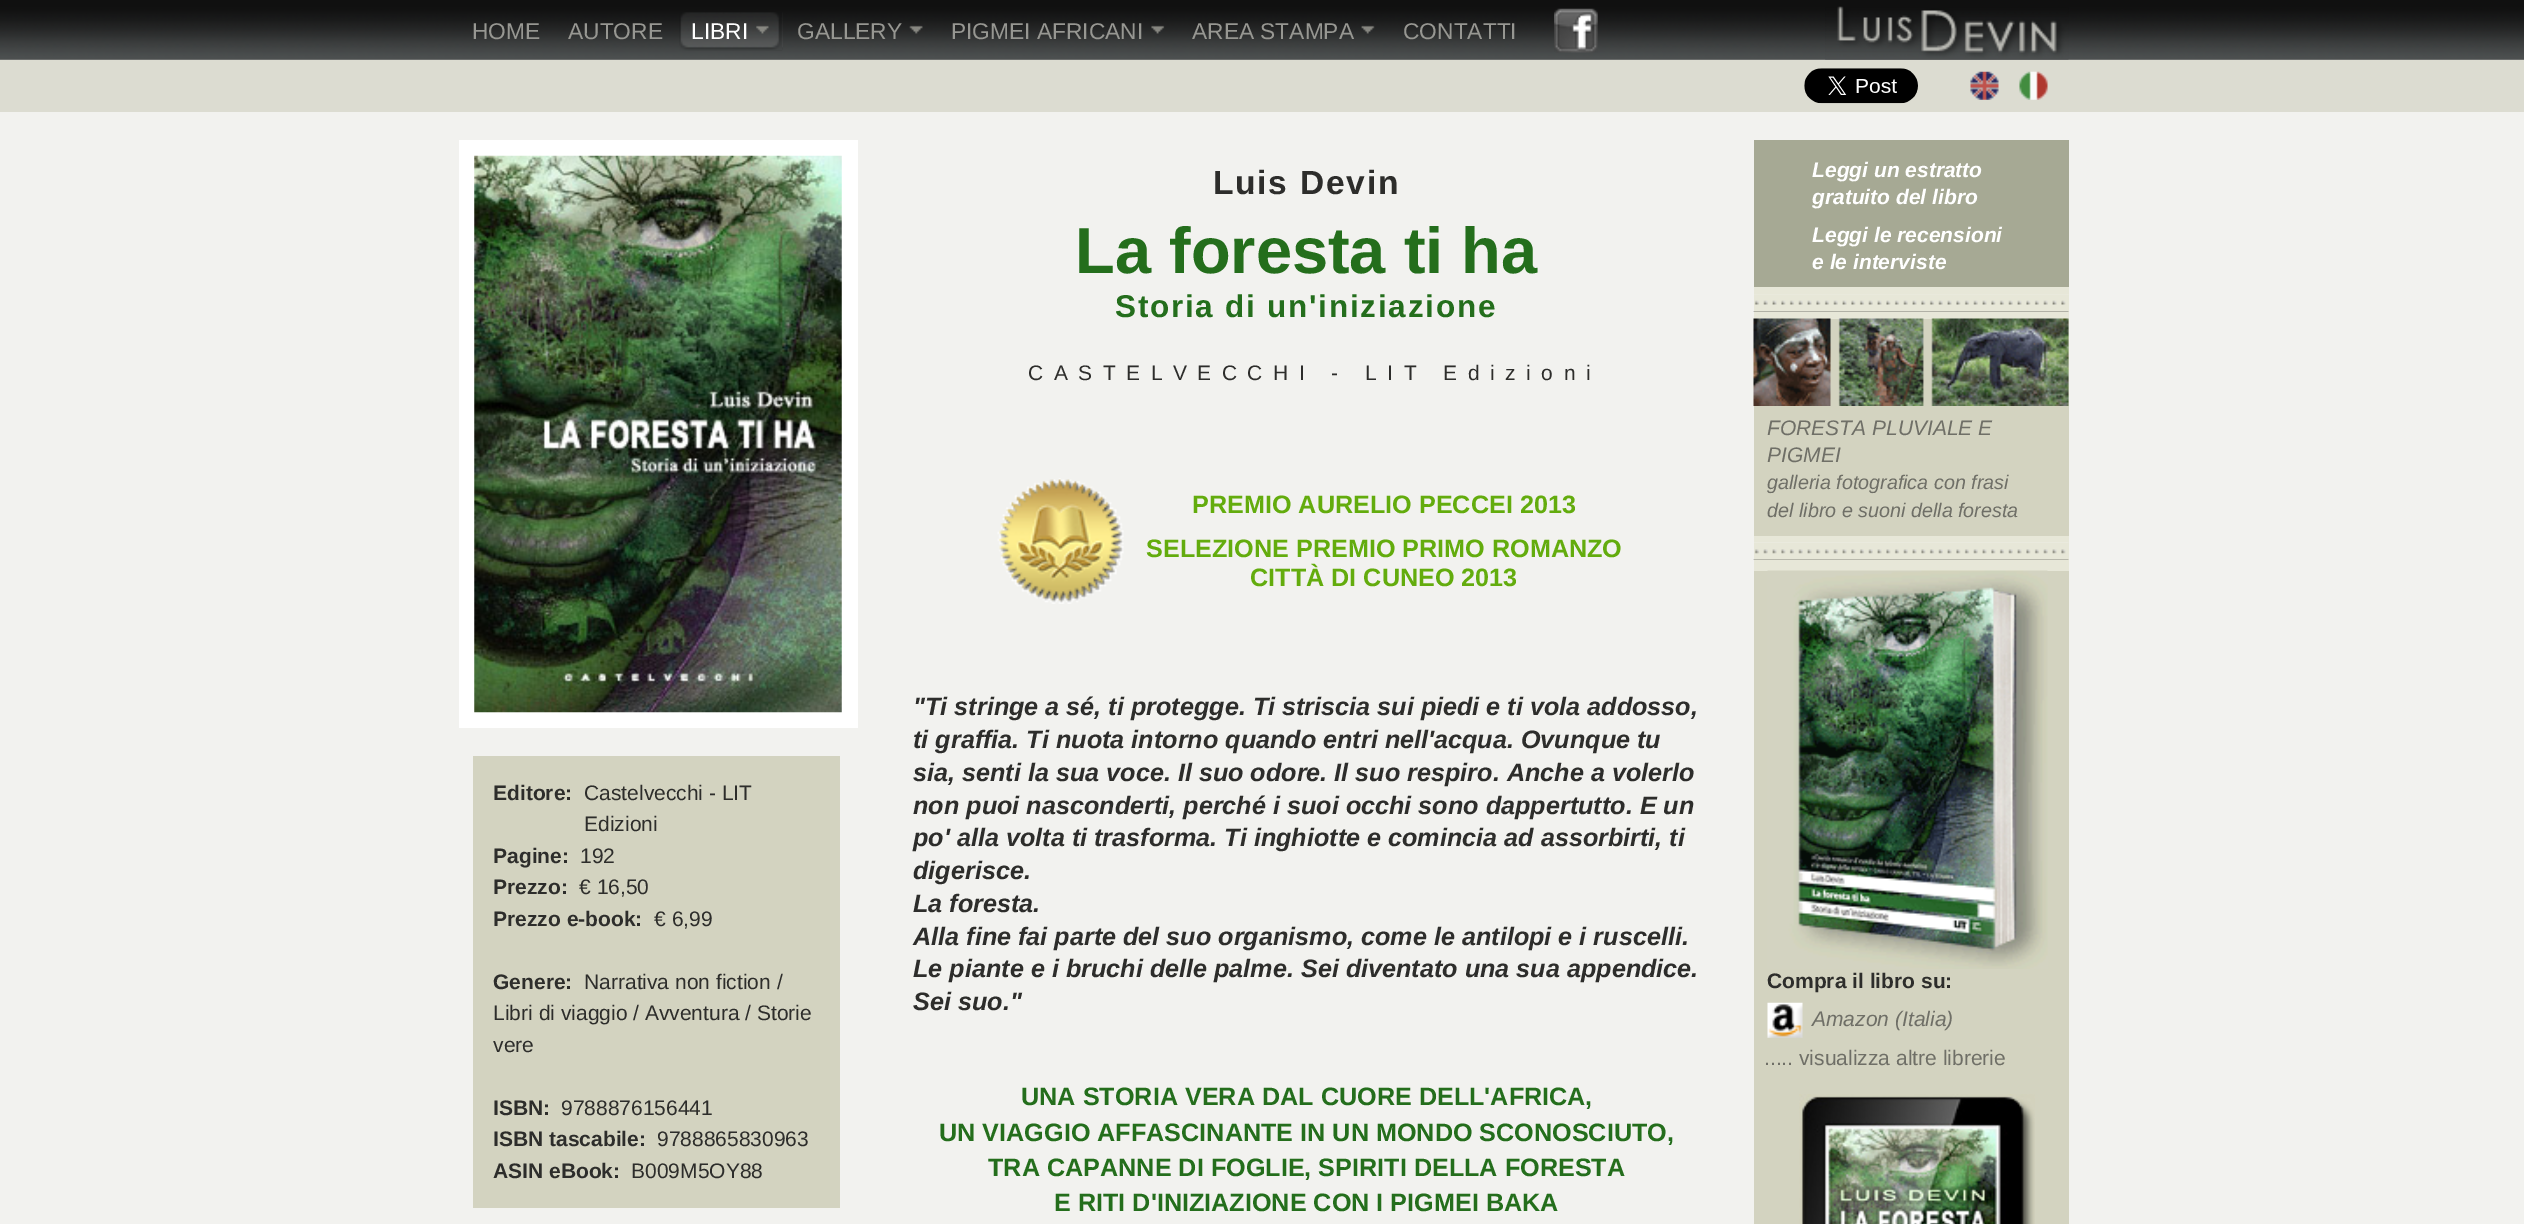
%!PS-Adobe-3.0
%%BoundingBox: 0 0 2524 1224
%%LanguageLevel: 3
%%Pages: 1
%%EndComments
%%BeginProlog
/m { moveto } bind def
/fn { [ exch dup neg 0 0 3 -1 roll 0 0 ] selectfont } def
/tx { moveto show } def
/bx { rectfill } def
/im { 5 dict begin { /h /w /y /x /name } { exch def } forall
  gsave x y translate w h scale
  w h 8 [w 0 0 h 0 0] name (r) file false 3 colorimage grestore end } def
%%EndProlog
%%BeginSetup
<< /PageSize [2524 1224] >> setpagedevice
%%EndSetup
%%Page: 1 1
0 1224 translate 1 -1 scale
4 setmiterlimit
0.949 0.949 0.937 setrgbcolor
0 0 2524 1224 bx
0.208 0.216 0.216 setrgbcolor
0 59 2524 1 bx
(image0.raw) 0 0 2524 60 im
(image1.raw) 1825 6 244 54 im
/LiberationSans-Regular 22.75 fn
0.592 0.592 0.573 setrgbcolor
(HOME) 472 39 tx
(AUTORE) 568 39 tx
(image2.raw) 679 12 104 39 im
(image3.raw) 756 12 26 38 im
1 setgray
(LIBRI) 691 39 tx
(image4.raw) 909 25 14 9 im
0.592 0.592 0.573 setrgbcolor
(GALLERY) 797 39 tx
(image5.raw) 1151 25 14 9 im
(PIGMEI AFRICANI) 951 39 tx
(image6.raw) 1361 25 14 9 im
(AREA STAMPA) 1192 39 tx
(CONTATTI) 1403 39 tx
(image7.raw) 1554 8 44 45 im
1 setgray
459 140 399 588 bx
(image8.raw) 474 155 368 558 im
0.827 0.827 0.753 setrgbcolor
473 756 367 452 bx
/LiberationSans-Bold 21 fn
0.176 0.176 0.169 setrgbcolor
(Editore:) 493 800 tx
/LiberationSans-Regular 21 fn
(Castelvecchi - LIT) 584 800 tx
(Edizioni) 584 831 tx
/LiberationSans-Bold 21 fn
(Pagine:) 493 863 tx
/LiberationSans-Regular 21 fn
(192) 580 863 tx
/LiberationSans-Bold 21 fn
(Prezzo:) 493 894 tx
/LiberationSans-Regular 21 fn
(€ 16,50) 579 894 tx
/LiberationSans-Bold 21 fn
(Prezzo e-book:) 493 926 tx
/LiberationSans-Regular 21 fn
(€ 6,99) 654 926 tx
/LiberationSans-Bold 21 fn
(Genere:) 493 989 tx
/LiberationSans-Regular 21 fn
(Narrativa non fiction /) 584 989 tx
(Libri di viaggio / Avventura / Storie) 493 1020 tx
(vere) 493 1052 tx
/LiberationSans-Bold 21 fn
(ISBN:) 493 1115 tx
/LiberationSans-Regular 21 fn
(9788876156441) 561 1115 tx
/LiberationSans-Bold 21 fn
(ISBN tascabile:) 493 1146 tx
/LiberationSans-Regular 21 fn
(9788865830963) 657 1146 tx
/LiberationSans-Bold 21 fn
(ASIN eBook:) 493 1178 tx
/LiberationSans-Regular 21 fn
(B009M5OY88) 631 1178 tx
/LiberationSans-Bold 33.5 fn
1213 194 m 1.75 0 (Luis Devin) ashow
/LiberationSans-Bold 65 fn
0.141 0.431 0.11 setrgbcolor
(La foresta ti ha) 1075 273 tx
/LiberationSans-Bold 31.5 fn
1115 317 m 1.75 0 (Storia di un'iniziazione) ashow
/LiberationSans-Regular 21 fn
0.176 0.176 0.169 setrgbcolor
1028 380 m 10.5 0 (CASTELVECCHI - LIT Edizioni) ashow
(image9.raw) 997 478 127 126 im
/LiberationSans-Bold 25.2 fn
0.388 0.675 0.051 setrgbcolor
(PREMIO AURELIO PECCEI 2013) 1192 513 tx
(SELEZIONE PREMIO PRIMO ROMANZO) 1146 557 tx
(CITTÀ DI CUNEO 2013) 1250 586 tx
/LiberationSans-BoldItalic 25.2 fn
0.176 0.176 0.169 setrgbcolor
("Ti stringe a sé, ti protegge. Ti striscia sui piedi e ti vola addosso,) 913 715 tx
(ti graffia. Ti nuota intorno quando entri nell'acqua. Ovunque tu) 913 748 tx
(sia, senti la sua voce. Il suo odore. Il suo respiro. Anche a volerlo) 913 781 tx
(non puoi nasconderti, perché i suoi occhi sono dappertutto. E un) 913 814 tx
(po' alla volta ti trasforma. Ti inghiotte e comincia ad assorbirti, ti) 913 846 tx
(digerisce.) 913 879 tx
(La foresta.) 913 912 tx
(Alla fine fai parte del suo organismo, come le antilopi e i ruscelli.) 913 945 tx
(Le piante e i bruchi delle palme. Sei diventato una sua appendice.) 913 977 tx
(Sei suo.") 913 1010 tx
/LiberationSans-Bold 25.2 fn
0.141 0.431 0.11 setrgbcolor
(UNA STORIA VERA DAL CUORE DELL'AFRICA,) 1021 1105 tx
(UN VIAGGIO AFFASCINANTE IN UN MONDO SCONOSCIUTO,) 939 1141 tx
(TRA CAPANNE DI FOGLIE, SPIRITI DELLA FORESTA) 988 1176 tx
(E RITI D'INIZIAZIONE CON I PIGMEI BAKA) 1054 1211 tx
0.906 0.906 0.847 setrgbcolor
1754 287 315 284 bx
0.651 0.663 0.58 setrgbcolor
1754 140 315 147 bx
/LiberationSans-BoldItalic 21 fn
1 setgray
(Leggi un estratto) 1812 177 tx
(gratuito del libro) 1812 204 tx
(Leggi le recensioni) 1812 242 tx
(e le interviste) 1812 269 tx
(image10.raw) 1753 294 316 18 im
0.827 0.827 0.753 setrgbcolor
1754 319 315 217 bx
(image11.raw) 1753 318 316 88 im
/LiberationSans-Italic 21 fn
0.435 0.435 0.404 setrgbcolor
(FORESTA PLUVIALE E) 1767 435 tx
(PIGMEI) 1767 462 tx
/LiberationSans-Italic 19.75 fn
(galleria fotografica con frasi) 1767 489 tx
(del libro e suoni della foresta) 1767 517 tx
(image12.raw) 1753 542 316 18 im
0.827 0.827 0.753 setrgbcolor
1754 571 315 653 bx
(image13.raw) 1767 570 281 399 im
/LiberationSans-Bold 21 fn
0.176 0.176 0.169 setrgbcolor
(Compra il libro su:) 1767 988 tx
(image14.raw) 1767 1002 36 36 im
/LiberationSans-Italic 21 fn
0.435 0.435 0.404 setrgbcolor
(Amazon \(Italia\)) 1812 1026 tx
/LiberationSans-Regular 21 fn
(..... visualizza altre librerie) 1764 1065 tx
(image15.raw) 1799 1094 236 130 im
0.863 0.863 0.82 setrgbcolor
0 60 2524 52 bx
(image16.raw) 1804 68 114 36 im
(image17.raw) 1970 71 29 29 im
(image18.raw) 2019 71 29 29 im
showpage
%%EOF
